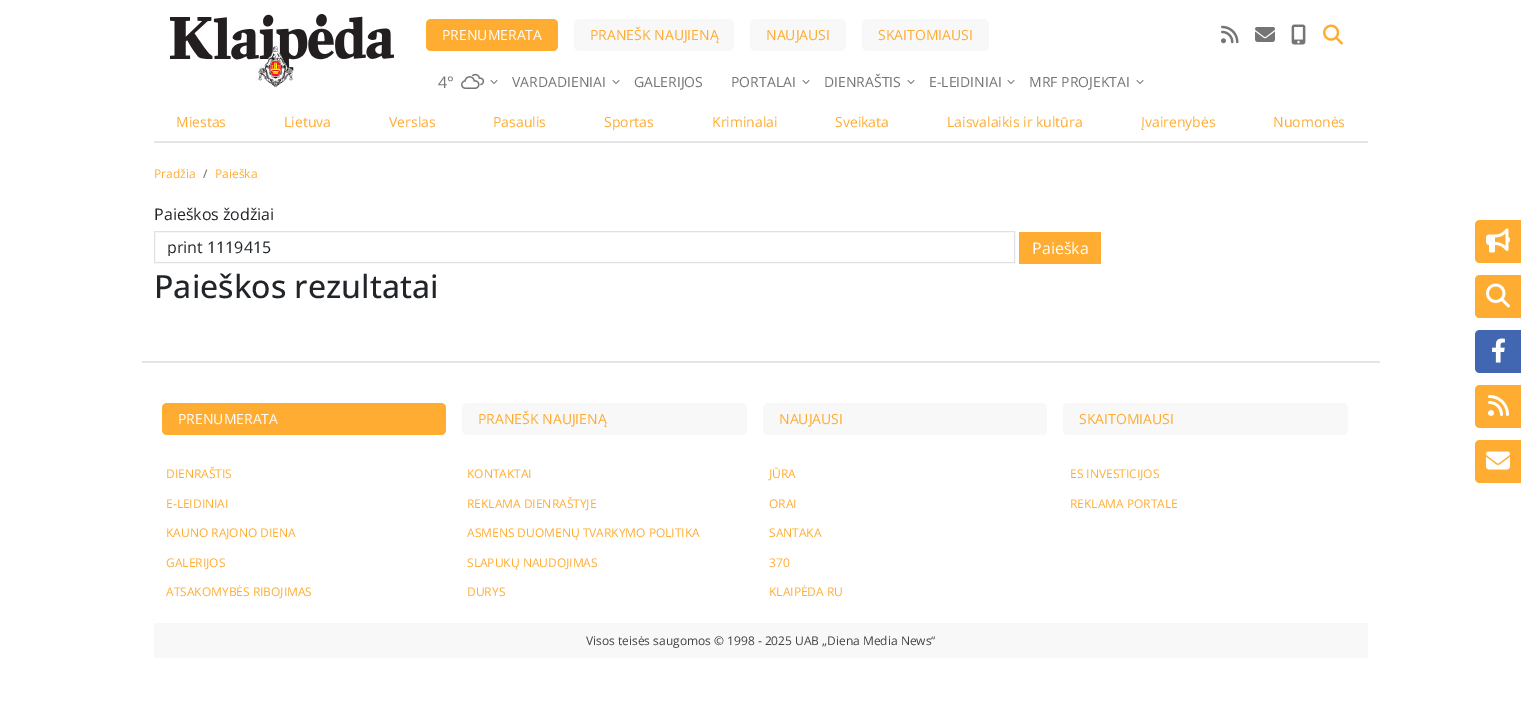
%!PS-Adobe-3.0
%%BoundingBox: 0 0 1521 713
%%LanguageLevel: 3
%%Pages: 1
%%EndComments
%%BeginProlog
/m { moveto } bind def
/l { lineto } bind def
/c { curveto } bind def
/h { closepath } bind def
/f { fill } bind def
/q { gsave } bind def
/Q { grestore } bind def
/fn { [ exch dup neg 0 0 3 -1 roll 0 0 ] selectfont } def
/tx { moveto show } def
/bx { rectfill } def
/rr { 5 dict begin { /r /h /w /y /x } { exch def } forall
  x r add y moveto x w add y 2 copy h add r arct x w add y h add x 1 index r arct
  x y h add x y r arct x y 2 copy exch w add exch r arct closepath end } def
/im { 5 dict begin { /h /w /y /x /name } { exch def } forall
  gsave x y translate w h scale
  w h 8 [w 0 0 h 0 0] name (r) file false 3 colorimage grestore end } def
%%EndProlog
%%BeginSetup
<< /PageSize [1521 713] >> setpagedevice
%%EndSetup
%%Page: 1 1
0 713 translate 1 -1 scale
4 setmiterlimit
1 setgray
0 0 1521 713 bx
(image0.raw) 170 14 224 73 im
1 0.678 0.196 setrgbcolor
426 19 132 32 5 rr f
/OpenSans-Regular 14 fn
1 setgray
(PRENUMERATA) 442 40 tx
0.973 setgray
574 19 160 32 5 rr f
1 0.678 0.196 setrgbcolor
(PRANEŠK NAUJIENĄ) 590 40 tx
0.973 setgray
750 19 96 32 5 rr f
1 0.678 0.196 setrgbcolor
(NAUJAUSI) 766 40 tx
0.973 setgray
862 19 127 32 5 rr f
1 0.678 0.196 setrgbcolor
(SKAITOMIAUSI) 878 40 tx
(image1.raw) 1221 25 18 19 im
(image2.raw) 1255 27 20 15 im
(image3.raw) 1291 24 15 21 im
(image4.raw) 1323 24 20 21 im
/OpenSans-Regular 16 fn
0.459 setgray
(4°) 438 88 tx
(image5.raw) 461 73 24 16 im
(image6.raw) 490 80 8 4 im
/OpenSans-Regular 14 fn
(VARDADIENIAI) 512 87 tx
(image6.raw) 612 80 8 4 im
(GALERIJOS) 634 87 tx
(PORTALAI) 731 87 tx
(image6.raw) 802 80 8 4 im
(DIENRAŠTIS) 824 87 tx
(image6.raw) 907 80 8 4 im
(E-LEIDINIAI) 929 87 tx
(image6.raw) 1007 80 8 4 im
(MRF PROJEKTAI) 1029 87 tx
(image6.raw) 1136 80 8 4 im
0.898 setgray
154 141 1214 2 bx
1 0.678 0.196 setrgbcolor
(Miestas) 176 127 tx
(Lietuva) 284 127 tx
(Verslas) 389 127 tx
(Pasaulis) 493 127 tx
(Sportas) 604 127 tx
(Kriminalai) 712 127 tx
(Sveikata) 835 127 tx
(Laisvalaikis ir kultūra) 947 127 tx
(Įvairenybės) 1141 127 tx
(Nuomonės) 1273 127 tx
/OpenSans-Regular 12 fn
(Pradžia) 154 178 tx
0.349 0.361 0.373 setrgbcolor
(/) 203 178 tx
1 0.678 0.196 setrgbcolor
(Paieška) 215 178 tx
/OpenSans-Regular 16 fn
0.129 0.145 0.161 setrgbcolor
(Paieškos žodžiai) 154 220 tx
0.871 0.886 0.902 setrgbcolor
154.5 231.5 860 31 rectstroke
q
167 238 820 18 rectclip
0.129 0.145 0.161 setrgbcolor
(print 1119415) 167 253 tx
Q
1 0.678 0.196 setrgbcolor
1019 232 82 32 bx
1 setgray
(Paieška) 1032 254 tx
/OpenSans-Medium 32 fn
0.129 0.145 0.161 setrgbcolor
(Paieškos rezultatai) 154 298 tx
1 0.678 0.196 setrgbcolor
1480 220 m 1521 220 l 1521 263 l 1480 263 l 1477 263 1475 261 1475 258 c 1475 225 l 1475 222 1477 220 1480 220 c h f
(image7.raw) 1486 228 24 25 im
1480 275 m 1521 275 l 1521 318 l 1480 318 l 1477 318 1475 316 1475 313 c 1475 280 l 1475 277 1477 275 1480 275 c h f
(image8.raw) 1486 283 24 25 im
0.259 0.404 0.698 setrgbcolor
1480 330 m 1521 330 l 1521 373 l 1480 373 l 1477 373 1475 371 1475 368 c 1475 335 l 1475 332 1477 330 1480 330 c h f
(image9.raw) 1492 338 13 25 im
1 0.678 0.196 setrgbcolor
1480 385 m 1521 385 l 1521 428 l 1480 428 l 1477 428 1475 426 1475 423 c 1475 390 l 1475 387 1477 385 1480 385 c h f
(image10.raw) 1488 395 21 21 im
1480 440 m 1521 440 l 1521 483 l 1480 483 l 1477 483 1475 481 1475 478 c 1475 445 l 1475 442 1477 440 1480 440 c h f
(image11.raw) 1486 451 24 19 im
0.898 setgray
142 361 1238 2 bx
1 0.678 0.196 setrgbcolor
162 403 284 32 5 rr f
/OpenSans-Regular 14 fn
1 setgray
(PRENUMERATA) 178 424 tx
0.973 setgray
462 403 285 32 5 rr f
1 0.678 0.196 setrgbcolor
(PRANEŠK NAUJIENĄ) 478 424 tx
0.973 setgray
763 403 284 32 5 rr f
1 0.678 0.196 setrgbcolor
(NAUJAUSI) 779 424 tx
0.973 setgray
1063 403 285 32 5 rr f
1 0.678 0.196 setrgbcolor
(SKAITOMIAUSI) 1079 424 tx
/OpenSans-Regular 12 fn
(DIENRAŠTIS) 166 478 tx
(KONTAKTAI) 467 478 tx
(JŪRA) 769 478 tx
(ES INVESTICIJOS) 1070 478 tx
(E-LEIDINIAI) 166 508 tx
(REKLAMA DIENRAŠTYJE) 467 508 tx
(ORAI) 769 508 tx
(REKLAMA PORTALE) 1070 508 tx
(KAUNO RAJONO DIENA) 166 537 tx
(ASMENS DUOMENŲ TVARKYMO POLITIKA) 467 537 tx
(SANTAKA) 769 537 tx
(GALERIJOS) 166 567 tx
(SLAPUKŲ NAUDOJIMAS) 467 567 tx
(370) 769 567 tx
(ATSAKOMYBĖS RIBOJIMAS) 166 596 tx
(DURYS) 467 596 tx
(KLAIPĖDA RU) 769 596 tx
0.973 setgray
154 623 1214 35 bx
0.267 setgray
(Visos teisės saugomos © 1998 - 2025 UAB „Diena Media News“) 586 645 tx
showpage
%%EOF
